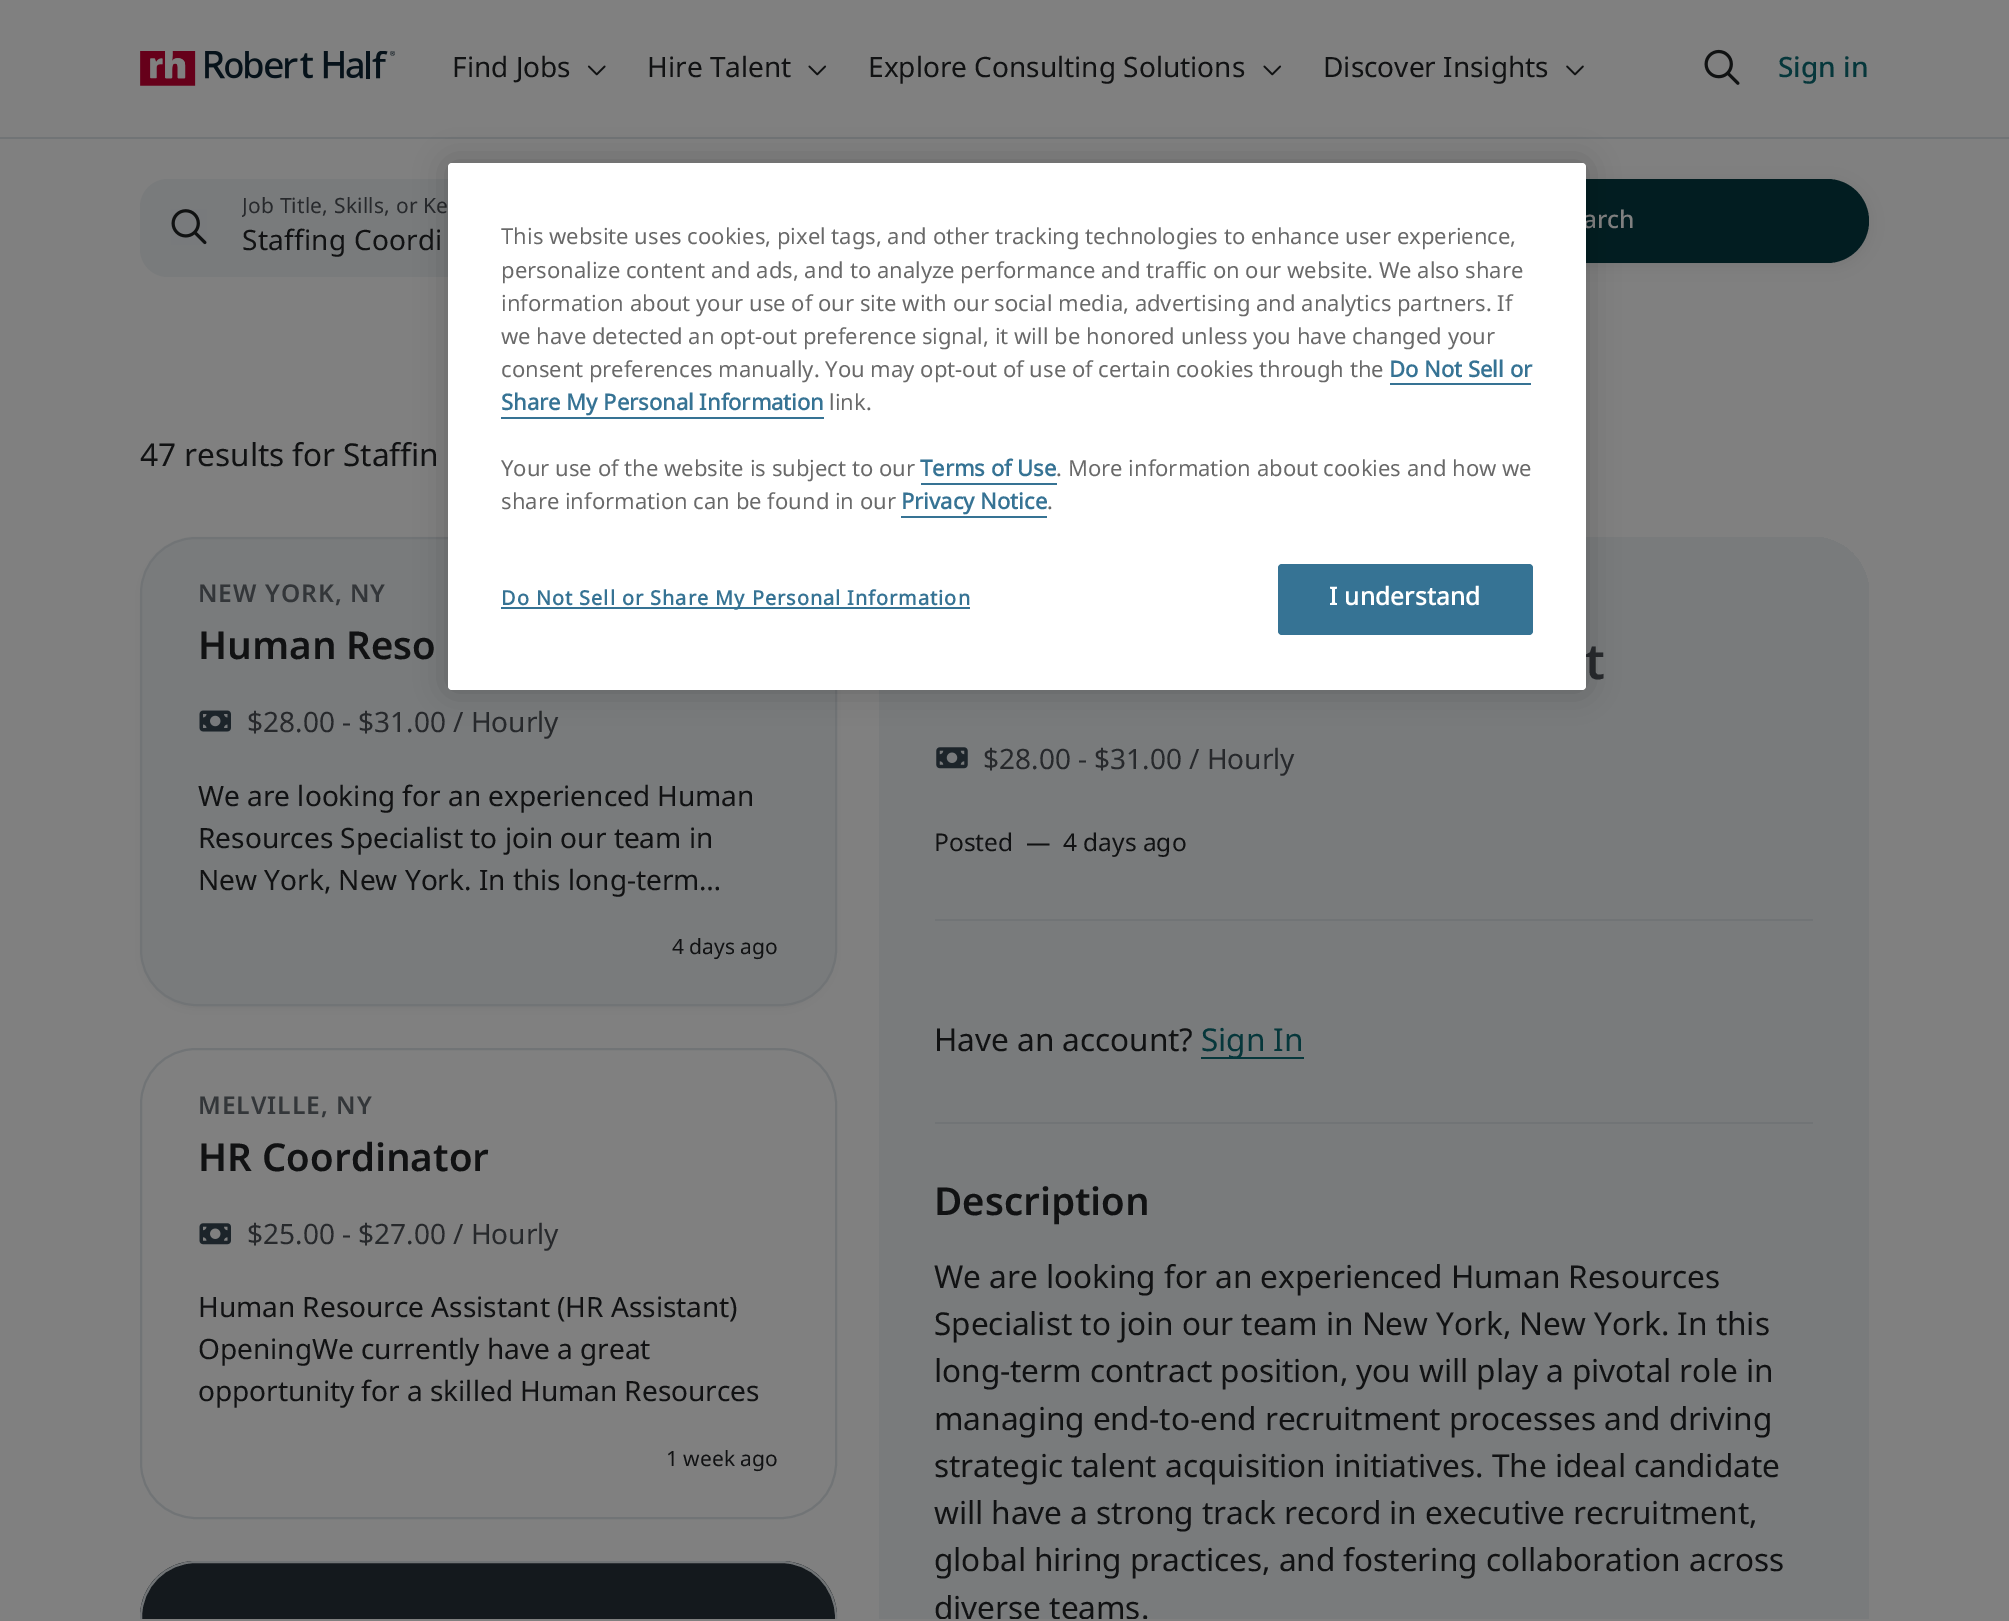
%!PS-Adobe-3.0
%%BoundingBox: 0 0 2009 1621
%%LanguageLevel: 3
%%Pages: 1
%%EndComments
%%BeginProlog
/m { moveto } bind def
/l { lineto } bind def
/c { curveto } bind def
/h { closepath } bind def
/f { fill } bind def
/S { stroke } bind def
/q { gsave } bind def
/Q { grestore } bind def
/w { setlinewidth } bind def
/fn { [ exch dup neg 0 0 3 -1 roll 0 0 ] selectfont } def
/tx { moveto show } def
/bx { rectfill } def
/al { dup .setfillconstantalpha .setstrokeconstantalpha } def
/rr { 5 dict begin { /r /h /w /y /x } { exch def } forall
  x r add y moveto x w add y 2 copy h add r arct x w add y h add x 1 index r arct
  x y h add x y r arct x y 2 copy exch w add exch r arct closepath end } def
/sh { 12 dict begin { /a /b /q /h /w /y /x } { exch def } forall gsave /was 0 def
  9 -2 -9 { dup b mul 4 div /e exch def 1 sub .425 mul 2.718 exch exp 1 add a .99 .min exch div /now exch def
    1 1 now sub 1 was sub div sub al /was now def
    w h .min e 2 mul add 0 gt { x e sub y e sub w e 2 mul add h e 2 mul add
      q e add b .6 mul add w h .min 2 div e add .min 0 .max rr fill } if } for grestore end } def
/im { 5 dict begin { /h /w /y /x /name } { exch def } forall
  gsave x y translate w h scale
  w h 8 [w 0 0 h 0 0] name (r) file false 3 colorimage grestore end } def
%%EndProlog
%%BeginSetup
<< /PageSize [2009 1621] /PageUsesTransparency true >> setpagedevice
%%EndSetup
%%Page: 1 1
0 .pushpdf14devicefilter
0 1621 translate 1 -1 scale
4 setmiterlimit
0.502 setgray
0 0 2009 1621 bx
0.443 0.455 0.463 setrgbcolor
0 137 2009 2 bx
(image0.raw) 140 51 256 35 im
/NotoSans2-Regular 28 fn
0.067 0.071 0.075 setrgbcolor
(Find Jobs) 452 77 tx
(image1.raw) 587 65 19 11 im
(Hire Talent) 647 77 tx
(image2.raw) 808 65 19 11 im
(Explore Consulting Solutions) 868 77 tx
(image2.raw) 1263 65 19 11 im
(Discover Insights) 1323 77 tx
(image3.raw) 1566 65 18 11 im
(image4.raw) 1704 49 36 36 im
/NotoSans-Medium 28 fn
0.024 0.216 0.231 setrgbcolor
(Sign in) 1778 77 tx
0.475 0.482 0.486 setrgbcolor
140 179 548 98 28 rr f
(image5.raw) 171 209 36 36 im
q
242 191 274 31 rectclip
/NotoSans2-Regular 21 fn
0.153 0.161 0.173 setrgbcolor
242 213 m 0.2 0 (Job Title, Skills, or Ke) ashow
Q
/NotoSans2-Regular 28 fn
0.067 0.071 0.075 setrgbcolor
242 250 m 0.25 0 (Staffing Coordi) ashow
0 setgray
1321 182 548 84 42 7 0.08 sh
0.008 0.114 0.129 setrgbcolor
1321 179 548 84 42 rr f
/NotoSans-Medium 24.5 fn
0.502 setgray
(arch) 1583 228 tx
/NotoSans-Regular 31.5 fn
0.067 0.071 0.075 setrgbcolor
(47 results) 140 466 tx
/NotoSans2-Regular 31.5 fn
(for Staffin) 292 466 tx
0 setgray
145 546 686 459 51 4.5 0.12 sh
0.475 0.482 0.486 setrgbcolor
141 538 695 467 55 rr q f Q
0.443 0.455 0.463 setrgbcolor
2 w
S
/NotoSans-SemiBold 24.5 fn
0.2 0.212 0.224 setrgbcolor
198 602 m 1 0 (NEW YORK, NY) ashow
/NotoSans-SemiBold 38.5 fn
0.067 0.071 0.075 setrgbcolor
(Human Reso) 198 659 tx
(image6.raw) 199 710 32 22 im
/NotoSans2-Regular 28 fn
0.153 0.161 0.173 setrgbcolor
($28.00 - $31.00 / Hourly) 247 732 tx
0.067 0.071 0.075 setrgbcolor
(We are looking for an experienced Human) 198 806 tx
(Resources Specialist to join our team in) 198 848 tx
(New York, New York. In this long-term…) 198 890 tx
/NotoSans2-Regular 21 fn
(4 days ago) 672 954 tx
0.443 0.455 0.463 setrgbcolor
141 1049 695 469 55 rr S
/NotoSans-SemiBold 24.5 fn
0.2 0.212 0.224 setrgbcolor
198 1114 m 1 0 (MELVILLE, NY) ashow
/NotoSans-SemiBold 38.5 fn
0.067 0.071 0.075 setrgbcolor
(HR Coordinator) 198 1171 tx
(image7.raw) 199 1223 32 22 im
/NotoSans2-Regular 28 fn
0.153 0.161 0.173 setrgbcolor
($25.00 - $27.00 / Hourly) 247 1244 tx
0.067 0.071 0.075 setrgbcolor
(Human Resource Assistant \(HR Assistant\)) 198 1317 tx
(OpeningWe currently have a great) 198 1359 tx
(opportunity for a skilled Human Resources) 198 1401 tx
/NotoSans2-Regular 21 fn
(1 week ago) 666 1466 tx
0.078 0.098 0.114 setrgbcolor
196 1561 m 781 1561 l 812 1561 837 1586 837 1617 c 837 1619 l 140 1619 l 140 1617 l 140 1586 165 1561 196 1561 c h f
q
0 137 2009 1482 rectclip
0.443 0.455 0.463 setrgbcolor
141 1562 695 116 55 rr S
Q
q 935 537 m 1813 537 l 1844 537 1869 562 1869 593 c 1869 1619 l 879 1619 l 879 593 l 879 562 904 537 935 537 c h clip newpath
<< /ShadingType 2 /ColorSpace /DeviceRGB /Coords [1374 537 1374 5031] /Extend [true true] /Function << /FunctionType 3 /Domain [0 1] /Functions [<< /FunctionType 2 /Domain [0 1] /C0 [0.475 0.482 0.486] /C1 [0.475 0.482 0.486] /N 1 >> << /FunctionType 2 /Domain [0 1] /C0 [0.475 0.482 0.486] /C1 [0.502 0.502 0.502] /N 1 >>] /Bounds [0.5] /Encode [0 1 0 1] >> >> shfill Q
/NotoSans-SemiBold 49 fn
0.153 0.161 0.173 setrgbcolor
(t) 1585 679 tx
(image8.raw) 936 747 32 22 im
/NotoSans2-Regular 28 fn
($28.00 - $31.00 / Hourly) 983 769 tx
/NotoSans2-Regular 24.5 fn
0.067 0.071 0.075 setrgbcolor
(Posted  —  4 days ago) 934 851 tx
0.443 0.455 0.463 setrgbcolor
935 919 878 2 bx
/NotoSans2-Regular 31.5 fn
0.067 0.071 0.075 setrgbcolor
(Have an account?) 934 1051 tx
0.024 0.216 0.231 setrgbcolor
1201 1057 103 2 bx
(Sign In) 1201 1051 tx
0.443 0.455 0.463 setrgbcolor
935 1122 878 2 bx
/NotoSans-SemiBold 38.5 fn
0.067 0.071 0.075 setrgbcolor
(Description) 934 1215 tx
/NotoSans2-Regular 31.5 fn
(We are looking for an experienced Human Resources) 934 1288 tx
(Specialist to join our team in New York, New York. In this) 934 1335 tx
(long-term contract position, you will play a pivotal role in) 934 1382 tx
(managing end-to-end recruitment processes and driving) 934 1430 tx
(strategic talent acquisition initiatives. The ideal candidate) 934 1477 tx
(will have a strong track record in executive recruitment,) 934 1524 tx
(global hiring practices, and fostering collaboration across) 934 1571 tx
q
879 537 990 1082 rectclip
(diverse teams.) 934 1619 tx
Q
0 setgray
448 163 1138 527 4 16 0.2 sh
1 setgray
448 163 1138 527 4 rr f
/NotoSans2-Regular 22.05 fn
0.412 setgray
(This website uses cookies, pixel tags, and other tracking technologies to enhance user experience,) 501 244 tx
(personalize content and ads, and to analyze performance and traffic on our website. We also share) 501 278 tx
(information about your use of our site with our social media, advertising and analytics partners. If) 501 311 tx
(we have detected an opt-out preference signal, it will be honored unless you have changed your) 501 344 tx
(consent preferences manually. You may opt-out of use of certain cookies through the) 501 377 tx
/NotoSans-Bold 22.05 fn
0.212 0.451 0.58 setrgbcolor
(Do Not Sell or) 1389 377 tx
1390 383 141 2 bx
(Share My Personal Information) 501 410 tx
501 417 323 2 bx
/NotoSans2-Regular 22.05 fn
0.412 setgray
(link.) 829 410 tx
(Your use of the website is subject to our) 501 476 tx
/NotoSans-Bold 22.05 fn
0.212 0.451 0.58 setrgbcolor
(Terms of Use) 920 476 tx
921 483 136 2 bx
/NotoSans2-Regular 22.05 fn
0.412 setgray
(. More information about cookies and how we) 1056 476 tx
(share information can be found in our) 501 509 tx
/NotoSans-Bold 22.05 fn
0.212 0.451 0.58 setrgbcolor
(Privacy Notice) 901 509 tx
901 516 146 2 bx
/NotoSans2-Regular 22.05 fn
0.412 setgray
(.) 1047 509 tx
0.212 0.451 0.58 setrgbcolor
501 607 469 2 bx
/NotoSans-Bold 19.9 fn
501 605 m 1 0 (Do Not Sell or Share My Personal Information) ashow
1278 564 255 71 4 rr f
/NotoSans-Bold 24.5 fn
1 setgray
1329 605 m 0.25 0 (I understand) ashow
.poppdf14devicefilter showpage
%%EOF
